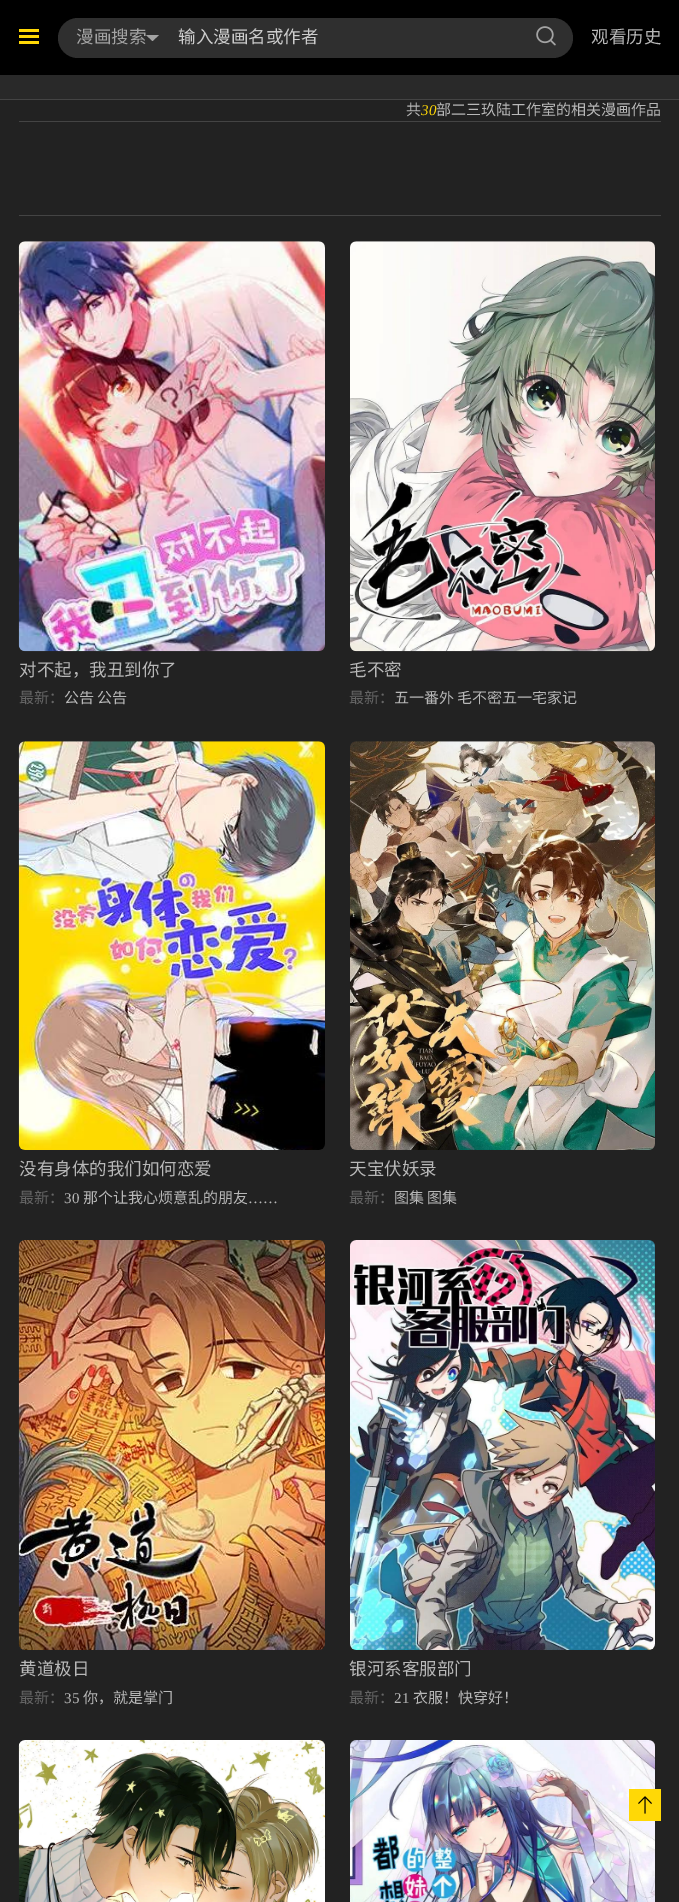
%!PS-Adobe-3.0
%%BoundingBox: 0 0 679 1902
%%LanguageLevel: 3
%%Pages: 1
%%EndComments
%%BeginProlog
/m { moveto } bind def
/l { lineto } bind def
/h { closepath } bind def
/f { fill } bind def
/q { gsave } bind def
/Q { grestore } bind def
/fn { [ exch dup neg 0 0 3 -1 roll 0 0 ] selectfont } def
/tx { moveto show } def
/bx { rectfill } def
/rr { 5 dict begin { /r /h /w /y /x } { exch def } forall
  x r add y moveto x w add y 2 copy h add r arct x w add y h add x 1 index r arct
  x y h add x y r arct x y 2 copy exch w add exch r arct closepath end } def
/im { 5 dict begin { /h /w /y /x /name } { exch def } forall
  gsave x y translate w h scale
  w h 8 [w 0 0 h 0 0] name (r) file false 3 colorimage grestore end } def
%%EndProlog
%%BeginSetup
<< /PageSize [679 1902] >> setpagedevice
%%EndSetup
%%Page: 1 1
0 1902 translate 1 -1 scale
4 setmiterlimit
0.161 setgray
0 0 679 1902 bx
0 setgray
0 0 679 75 bx
1 0.847 0.024 setrgbcolor
19 29 20 3 bx
19 35 20 3 bx
19 41 20 3 bx
0.184 setgray
58 18 515 40 20 rr f
/NotoSansCJKSC-Regular 17.5 fn
0.639 setgray
(漫画搜索) 76 43 tx
146 35 m 159 35 l 152.5 41 l h f
0.8 setgray
(输入漫画名或作者) 178 43 tx
(image0.raw) 536 26 20 20 im
0.722 setgray
(观看历史) 591 43 tx
0.267 setgray
-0.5 99.5 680 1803 rectstroke
0.133 setgray
0 100 679 1802 bx
0.267 setgray
19 121 642 1 bx
/NotoSansCJKSC-Regular 15 fn
0.722 setgray
(共) 406 115 tx
/LiberationSerif-Italic 15 fn
1 0.847 0.024 setrgbcolor
(30) 421 115 tx
/NotoSansCJKSC-Regular 15 fn
0.722 setgray
(部二三玖陆工作室的相关漫画作品) 436 115 tx
0.267 setgray
19 215 642 1 bx
(image1.raw) 18 241 307 411 im
/NotoSansCJKSC-Regular 17.5 fn
0.722 setgray
(对不起，我丑到你了) 19 676 tx
/NotoSansCJKSC-Regular 15 fn
0.4 setgray
(最新：) 19 703 tx
q
64 691 261 15 rectclip
0.722 setgray
(公告 公告) 64 703 tx
Q
(image2.raw) 350 241 305 411 im
/NotoSansCJKSC-Regular 17.5 fn
0.722 setgray
(毛不密) 349 676 tx
/NotoSansCJKSC-Regular 15 fn
0.4 setgray
(最新：) 349 703 tx
q
395 691 260 15 rectclip
0.722 setgray
(五一番外 毛不密五一宅家记) 394 703 tx
Q
(image3.raw) 18 741 307 409 im
/NotoSansCJKSC-Regular 17.5 fn
0.722 setgray
(没有身体的我们如何恋爱) 19 1175 tx
/NotoSansCJKSC-Regular 15 fn
0.4 setgray
(最新：) 19 1203 tx
/LiberationSerif-Regular 15 fn
0.722 setgray
(30) 64 1203 tx
/NotoSansCJKSC-Regular 15 fn
(那个让我心烦意乱的朋友) 83 1203 tx
/LiberationSerif-Regular 15 fn
(……) 248 1203 tx
(image4.raw) 350 741 305 409 im
/NotoSansCJKSC-Regular 17.5 fn
(天宝伏妖录) 349 1175 tx
/NotoSansCJKSC-Regular 15 fn
0.4 setgray
(最新：) 349 1203 tx
0.722 setgray
(图集 图集) 394 1203 tx
(image5.raw) 18 1240 307 410 im
/NotoSansCJKSC-Regular 17.5 fn
(黄道极日) 19 1675 tx
/NotoSansCJKSC-Regular 15 fn
0.4 setgray
(最新：) 19 1703 tx
/LiberationSerif-Regular 15 fn
0.722 setgray
(35) 64 1703 tx
/NotoSansCJKSC-Regular 15 fn
(你，就是掌门) 83 1703 tx
(image6.raw) 350 1240 305 410 im
/NotoSansCJKSC-Regular 17.5 fn
(银河系客服部门) 349 1675 tx
/NotoSansCJKSC-Regular 15 fn
0.4 setgray
(最新：) 349 1703 tx
/LiberationSerif-Regular 15 fn
0.722 setgray
(21) 394 1703 tx
/NotoSansCJKSC-Regular 15 fn
(衣服！快穿好！) 413 1703 tx
(image7.raw) 18 1740 307 162 im
(image8.raw) 350 1740 305 162 im
1 0.847 0.024 setrgbcolor
629 1789 32 32 bx
(image9.raw) 638 1796 14 18 im
showpage
%%EOF
